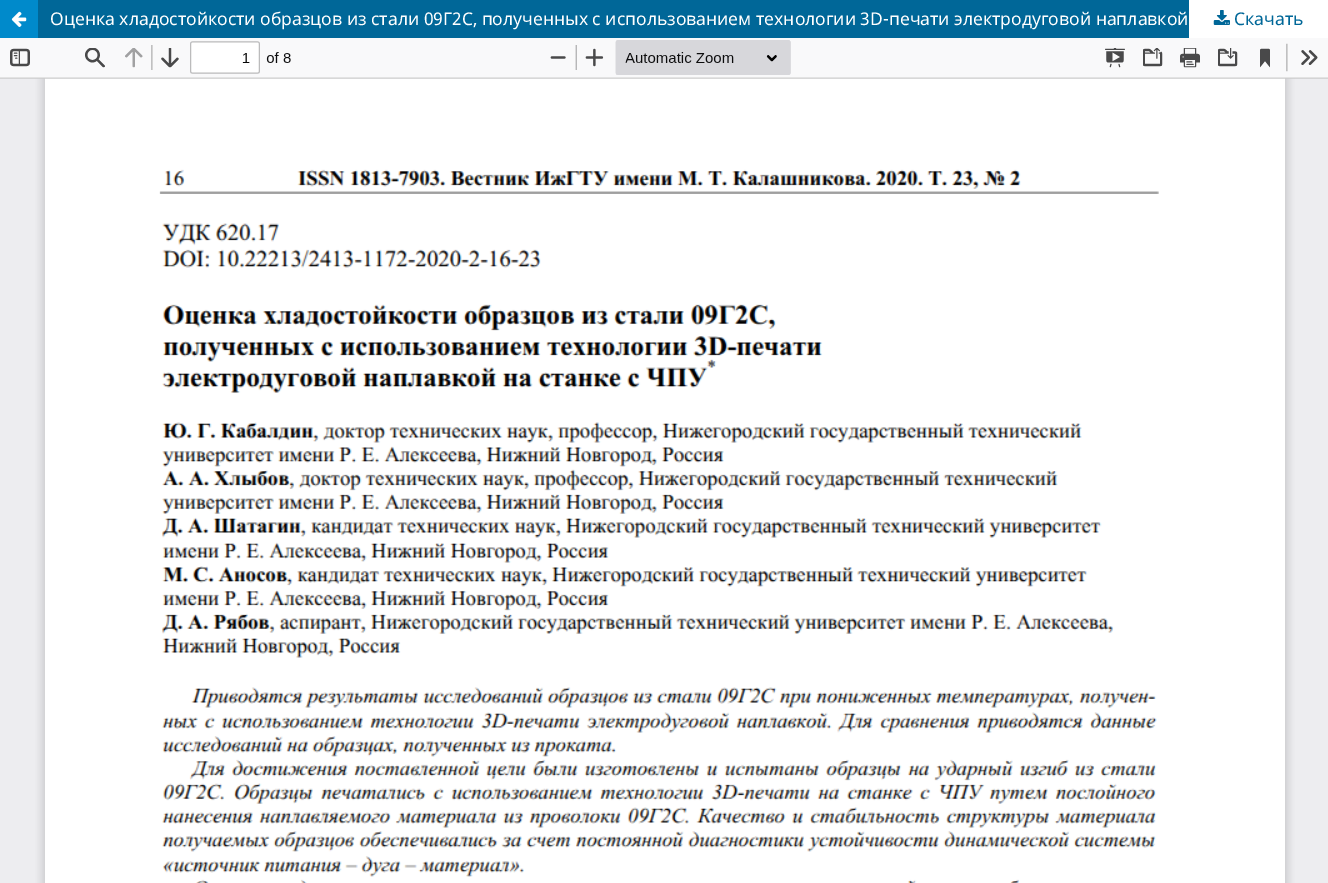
%!PS-Adobe-3.0
%%BoundingBox: 0 0 1328 883
%%LanguageLevel: 3
%%Pages: 1
%%EndComments
%%BeginProlog
/fn { [ exch dup neg 0 0 3 -1 roll 0 0 ] selectfont } def
/tx { moveto show } def
/bx { rectfill } def
/im { 5 dict begin { /h /w /y /x /name } { exch def } forall
  gsave x y translate w h scale
  w h 8 [w 0 0 h 0 0] name (r) file false 3 colorimage grestore end } def
%%EndProlog
%%BeginSetup
<< /PageSize [1328 883] >> setpagedevice
%%EndSetup
%%Page: 1 1
0 883 translate 1 -1 scale
4 setmiterlimit
1 setgray
0 0 1328 883 bx
0 0.404 0.596 setrgbcolor
38 0 1151 38 bx
0 0.541 0.796 setrgbcolor
0 0 38 38 bx
(image0.raw) 11 11 16 16 im
/NotoSans-Regular 17.5 fn
1 setgray
(Оценка хладостойкости образцов из стали 09Г2С, полученных с использованием технологии 3D-печати электродуговой наплавкой) 50 25 tx
(image1.raw) 1213 10 17 15 im
0 0.404 0.596 setrgbcolor
(Скачать) 1234 25 tx
(image2.raw) 0 38 1328 845 im
showpage
%%EOF
